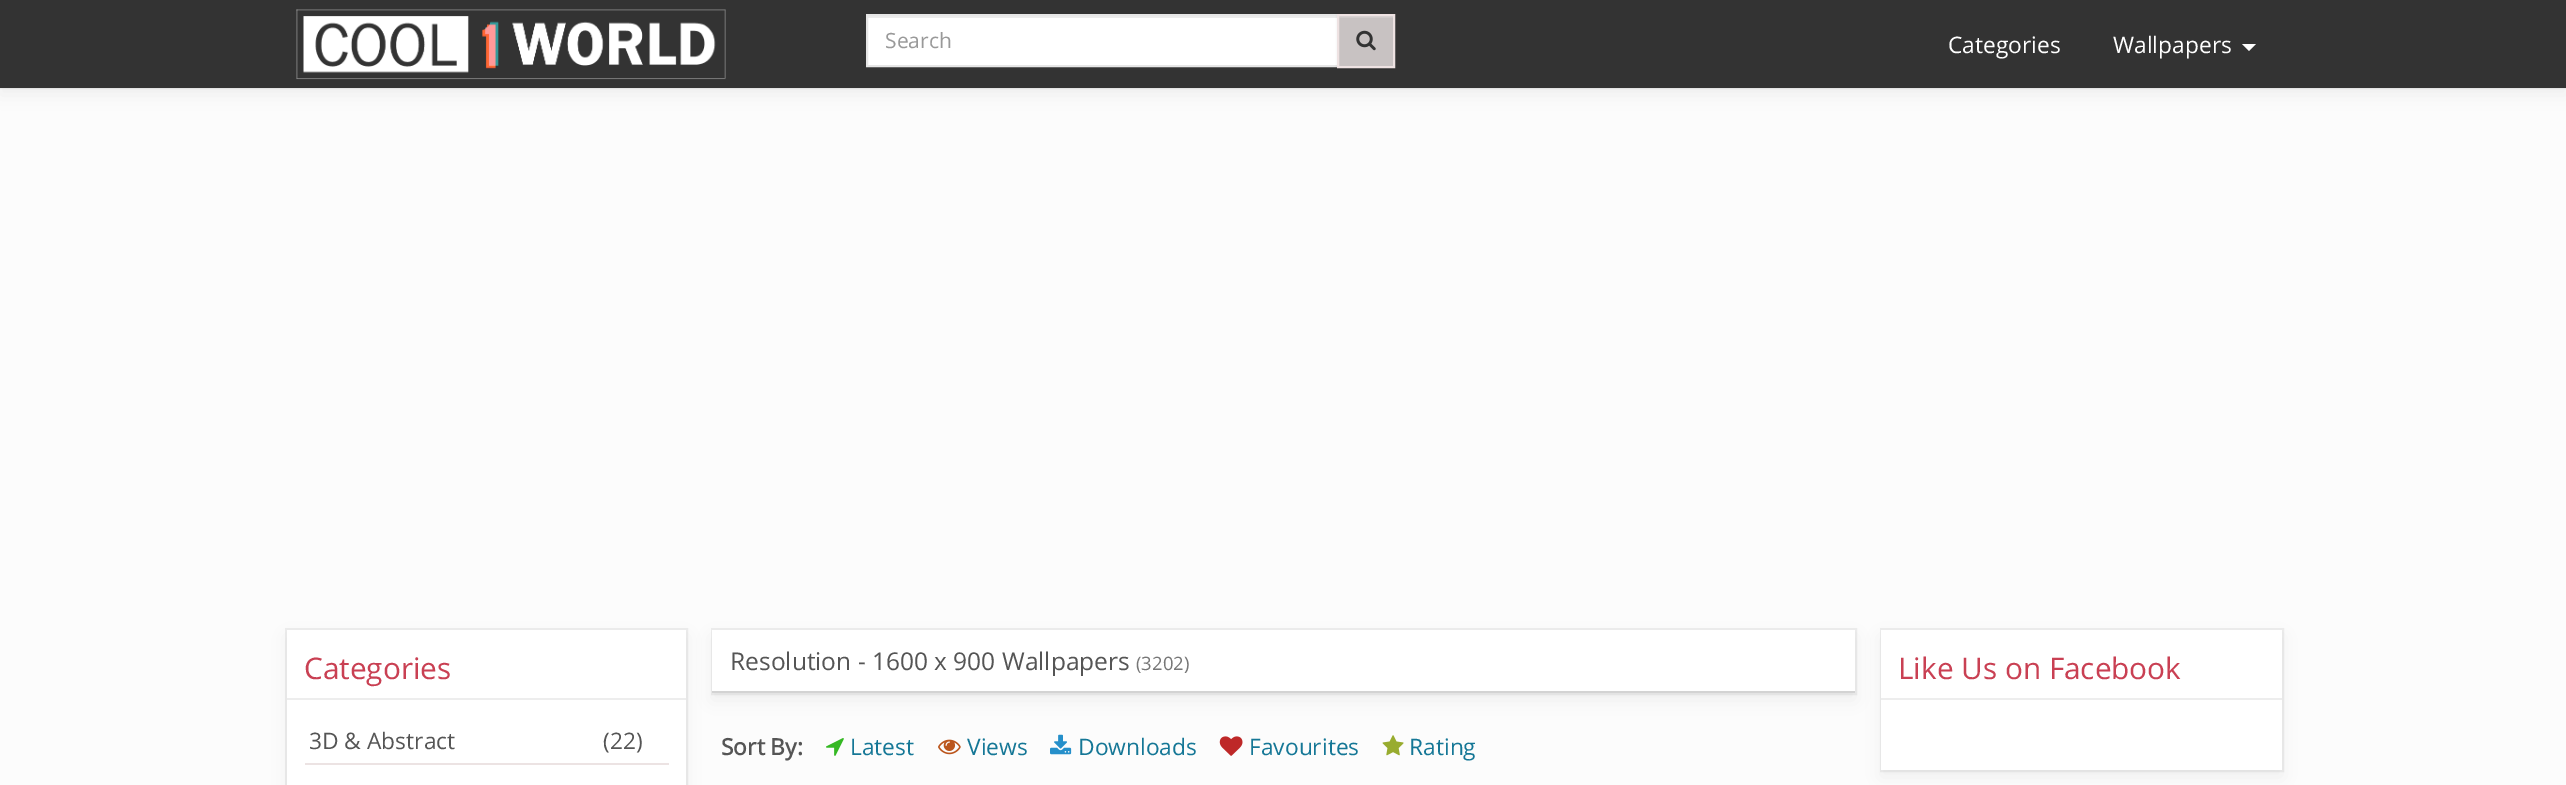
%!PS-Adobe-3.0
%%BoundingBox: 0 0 2566 785
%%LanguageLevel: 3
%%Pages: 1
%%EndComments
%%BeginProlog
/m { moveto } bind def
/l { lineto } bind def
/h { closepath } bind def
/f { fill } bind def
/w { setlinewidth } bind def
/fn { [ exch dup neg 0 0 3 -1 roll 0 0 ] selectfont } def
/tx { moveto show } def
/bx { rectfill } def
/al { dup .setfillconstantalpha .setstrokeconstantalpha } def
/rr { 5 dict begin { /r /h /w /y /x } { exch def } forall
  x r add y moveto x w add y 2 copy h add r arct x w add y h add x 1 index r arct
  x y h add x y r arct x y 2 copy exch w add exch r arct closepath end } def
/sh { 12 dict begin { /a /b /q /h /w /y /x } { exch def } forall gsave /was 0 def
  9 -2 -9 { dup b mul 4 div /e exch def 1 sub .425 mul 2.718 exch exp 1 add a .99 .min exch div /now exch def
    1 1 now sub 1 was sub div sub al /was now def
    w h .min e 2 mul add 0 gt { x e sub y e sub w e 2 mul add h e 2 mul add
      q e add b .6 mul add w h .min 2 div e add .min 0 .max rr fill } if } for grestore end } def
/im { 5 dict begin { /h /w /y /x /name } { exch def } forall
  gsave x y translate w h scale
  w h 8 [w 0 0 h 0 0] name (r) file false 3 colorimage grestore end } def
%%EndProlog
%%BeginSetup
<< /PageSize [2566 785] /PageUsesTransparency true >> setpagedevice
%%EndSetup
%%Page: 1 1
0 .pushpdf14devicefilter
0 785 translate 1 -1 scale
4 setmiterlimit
0.988 setgray
0 0 2566 785 bx
0 setgray
0 7 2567 88 0 9 0.06 sh
0.06 al
2 w
-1 -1 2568 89 rectstroke
1 al
0.2 setgray
0 0 2566 88 bx
(image0.raw) 296 9 430 71 im
1 setgray
868 18 469 47 bx
0.925 setgray
868 16 469 2 bx
0.902 setgray
867 15 471 51 rectstroke
/OpenSans-Regular 21 fn
0.6 setgray
(Search) 885 48 tx
0 setgray
1337 16 58 54 0 1 0.07 sh
0.784 0.761 0.761 setrgbcolor
1339 18 54 48 bx
0.816 0.796 0.796 setrgbcolor
1339 16 54 2 bx
0.933 0.886 0.886 setrgbcolor
1338 15 56 52 rectstroke
(image1.raw) 1356 30 20 21 im
/OpenSans-Regular 22.75 fn
1 setgray
(Categories) 1948 53 tx
(Wallpapers) 2113 53 tx
2242 44 m 2256 44 l 2249 51 l h f
0 setgray
287 637 399 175 0 9 0.06 sh
0.06 al
286 629 401 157 rectstroke
1 al
1 setgray
287 630 399 155 bx
0.929 setgray
287 698 399 2 bx
/OpenSans-Regular 29.75 fn
0.788 0.251 0.325 setrgbcolor
(Categories) 304 679 tx
0.925 0.89 0.89 setrgbcolor
305 763 364 2 bx
/OpenSans-Regular 22.75 fn
0.333 setgray
(3D & Abstract) 309 749 tx
(\(22\)) 603 749 tx
0 setgray
712 637 1143 63 0 9 0.06 sh
0.06 al
712 629 1144 65 rectstroke
1 al
1 setgray
712 630 1143 61 bx
0.827 setgray
712 691 1143 2 bx
/OpenSans-Regular 24.5 fn
0.333 setgray
(Resolution - 1600 x 900 Wallpapers) 730 670 tx
/OpenSans-Regular 18.5 fn
0.467 setgray
(\(3202\)) 1136 670 tx
/OpenSans-Bold 22.75 fn
0.333 setgray
(Sort By:) 721 755 tx
(image2.raw) 826 738 18 18 im
/OpenSans-Regular 22.75 fn
0.082 0.467 0.588 setrgbcolor
(Latest) 850 755 tx
(image3.raw) 938 739 23 16 im
(Views) 967 755 tx
(image4.raw) 1050 734 22 21 im
(Downloads) 1078 755 tx
(image5.raw) 1219 736 24 20 im
(Favourites) 1249 755 tx
(image6.raw) 1382 735 22 21 im
(Rating) 1409 755 tx
0 setgray
1881 637 401 140 0 9 0.06 sh
0.06 al
1881 629 402 142 rectstroke
1 al
1 setgray
1881 630 401 140 bx
0.929 setgray
1881 698 401 2 bx
/OpenSans-Regular 29.75 fn
0.788 0.251 0.325 setrgbcolor
(Like Us on Facebook) 1898 679 tx
.poppdf14devicefilter showpage
%%EOF
